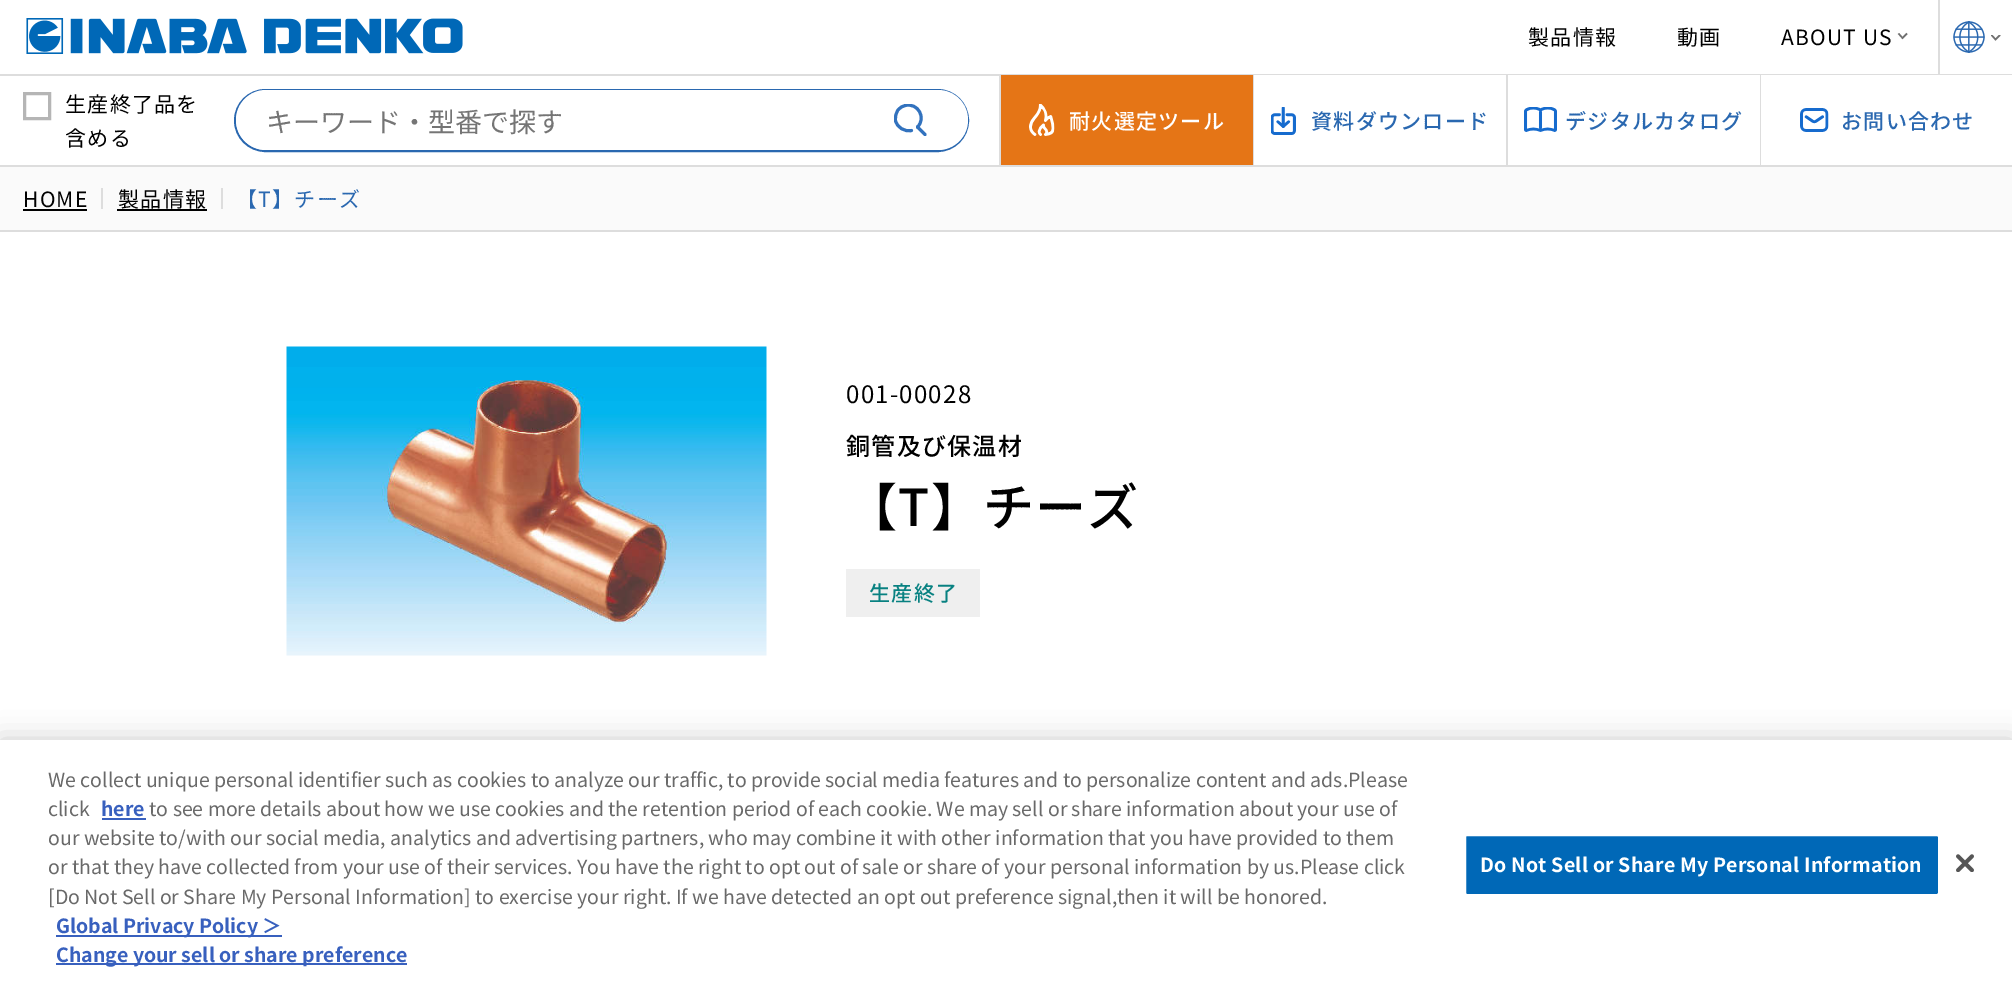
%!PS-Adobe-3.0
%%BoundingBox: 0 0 2012 993
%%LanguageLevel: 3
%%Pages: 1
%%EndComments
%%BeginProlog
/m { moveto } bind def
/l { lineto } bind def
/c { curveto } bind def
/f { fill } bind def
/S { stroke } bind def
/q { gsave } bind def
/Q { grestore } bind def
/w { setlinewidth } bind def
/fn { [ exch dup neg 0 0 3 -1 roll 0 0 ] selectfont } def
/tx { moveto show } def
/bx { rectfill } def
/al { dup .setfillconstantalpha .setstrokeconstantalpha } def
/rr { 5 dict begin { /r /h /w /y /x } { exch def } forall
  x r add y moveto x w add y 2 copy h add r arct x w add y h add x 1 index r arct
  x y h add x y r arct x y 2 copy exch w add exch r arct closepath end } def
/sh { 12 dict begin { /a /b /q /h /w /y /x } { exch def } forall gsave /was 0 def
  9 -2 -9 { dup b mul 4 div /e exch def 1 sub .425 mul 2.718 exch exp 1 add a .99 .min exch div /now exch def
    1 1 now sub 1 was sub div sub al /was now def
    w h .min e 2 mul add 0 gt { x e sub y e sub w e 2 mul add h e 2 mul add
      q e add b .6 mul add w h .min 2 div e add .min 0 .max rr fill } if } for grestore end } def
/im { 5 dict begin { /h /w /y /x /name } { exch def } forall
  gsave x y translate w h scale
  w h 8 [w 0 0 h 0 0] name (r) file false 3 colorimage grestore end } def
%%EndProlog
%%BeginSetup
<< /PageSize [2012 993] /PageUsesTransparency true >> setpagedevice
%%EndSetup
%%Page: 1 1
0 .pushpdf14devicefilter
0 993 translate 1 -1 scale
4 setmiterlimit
1 setgray
0 0 2012 993 bx
0.867 setgray
0 230 2012 2 bx
0 74 2012 2 bx
(image0.raw) 26 18 437 36 im
/NotoSansJP-Regular 21 fn
0 setgray
1528 45 m 1.25 0 (製品情報) ashow
1677 45 m 1.25 0 (動画) ashow
1781 45 m 1.25 0 (ABOUT US) ashow
0.439 setgray
1.5 w
1907 33.5 m 1902.5 38 l 1898.5 33.5 l S
0.867 setgray
1938 0 2 75 bx
(image1.raw) 1953 21 32 32 im
q
1991 35 10 6 rectclip
0.439 setgray
2000 35 m 1995.5 39.5 l 1991.5 35 l S
Q
0 165 2012 2 bx
0.71 setgray
3 w
24.5 93.5 25 25 rectstroke
0 setgray
65 112 m 1.25 0 (生産終了品を) ashow
65 146 m 1.25 0 (含める) ashow
0.165 0.408 0.69 setrgbcolor
2 w
235 90 733 61 30.5 rr S
1 setgray
236 90 732 60 30 rr f
/NotoSansJP-Regular 27 fn
0.459 setgray
(キーワード・型番で探す) 266 132 tx
q
894 104 33 33 rectclip
0.196 0.447 0.745 setrgbcolor
3 w
1 setlinecap
1 setlinejoin
911.5 130.5 m 904.5 132 897 127.5 895.5 120.5 c 895 116.5 896 113 898 110 c 900 107.5 902.5 106 905.5 105.5 c 918 102.5 926.5 118 917.5 127 c S
Q
0.196 0.447 0.745 setrgbcolor
3 w
1 setlinecap
1 setlinejoin
925 134.5 m 917.5 127 l S
0.867 setgray
999 75 2 90 bx
0.898 0.459 0.086 setrgbcolor
1001 75 252 90 bx
(image2.raw) 1029 104 26 32 im
/NotoSansJP-Medium 21 fn
1 setgray
1069 129 m 1.25 0 (耐火選定ツール) ashow
0.867 setgray
1253 75 1 90 bx
1 setgray
1254 75 252 1 bx
(image3.raw) 1271 107 25 28 im
0.165 0.408 0.69 setrgbcolor
1311 129 m 1.25 0 (資料ダウンロード) ashow
0.867 setgray
1506 75 2 90 bx
1 setgray
1508 75 252 1 bx
(image4.raw) 1524 107 33 25 im
0.165 0.408 0.69 setrgbcolor
1565 129 m 1.25 0 (デジタルカタログ) ashow
0.867 setgray
1760 75 1 90 bx
1 setgray
1761 75 251 1 bx
(image5.raw) 1800 108 29 24 im
0.165 0.408 0.69 setrgbcolor
1841 129 m 1.25 0 (お問い合わせ) ashow
0.98 setgray
0 167 2012 63 bx
/NotoSansJP-Regular 21 fn
0 setgray
23 207 m 1.25 0 (HOME) ashow
23 209 64 2 bx
0.867 setgray
101 188 2 21 bx
0 setgray
118 207 m 1.25 0 (製品情報) ashow
117 209 90 2 bx
0.867 setgray
221 188 2 21 bx
0.165 0.408 0.69 setrgbcolor
236 207 m 1.25 0 (【T】チーズ) ashow
(image6.raw) 286 346 481 310 im
/NotoSansJP-Regular 24 fn
0 setgray
846 403 m 1.25 0 (001-00028) ashow
/NotoSansJP-Medium 24 fn
846 455 m 1.25 0 (銅管及び保温材) ashow
/NotoSansJP-Medium 51 fn
846 526 m 1.25 0 (【T】チーズ) ashow
0.937 setgray
846 569 134 48 bx
/NotoSansJP-Medium 21 fn
0.031 0.506 0.506 setrgbcolor
869 601 m 1.25 0 (生産終了) ashow
0 setgray
0 740 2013 253 0 13.5 0.2 sh
1 setgray
0 740 2012 253 bx
/NotoSansJP-Regular 19.5 fn
0.412 setgray
(We collect unique personal identifier such as cookies to analyze our traffic, to provide social media features and to personalize content and ads.Please) 48 787 tx
(click) 48 816 tx
/NotoSansJP-Bold 19.5 fn
0.22 0.376 0.745 setrgbcolor
(here) 101 816 tx
102 818 44 2 bx
/NotoSansJP-Regular 19.5 fn
0.412 setgray
(to see more details about how we use cookies and the retention period of each cookie. We may sell or share information about your use of) 149 816 tx
(our website to/with our social media, analytics and advertising partners, who may combine it with other information that you have provided to them) 48 845 tx
(or that they have collected from your use of their services. You have the right to opt out of sale or share of your personal information by us.Please click) 48 874 tx
([Do Not Sell or Share My Personal Information] to exercise your right. If we have detected an opt out preference signal,then it will be honored.) 48 904 tx
0.22 0.376 0.745 setrgbcolor
56 935 226 2 bx
/NotoSansJP-Bold 19.5 fn
(Global Privacy Policy ＞) 56 933 tx
56 963 351 2 bx
(Change your sell or share preference) 56 962 tx
0 0.408 0.718 setrgbcolor
1465 835 474 60 2 rr q f Q
1 setgray
2 w
0 setlinecap
0 setlinejoin
S
1480 872 m 0.2 0 (Do Not Sell or Share My Personal Information) ashow
(image7.raw) 1956 854 18 18 im
.poppdf14devicefilter showpage
%%EOF
